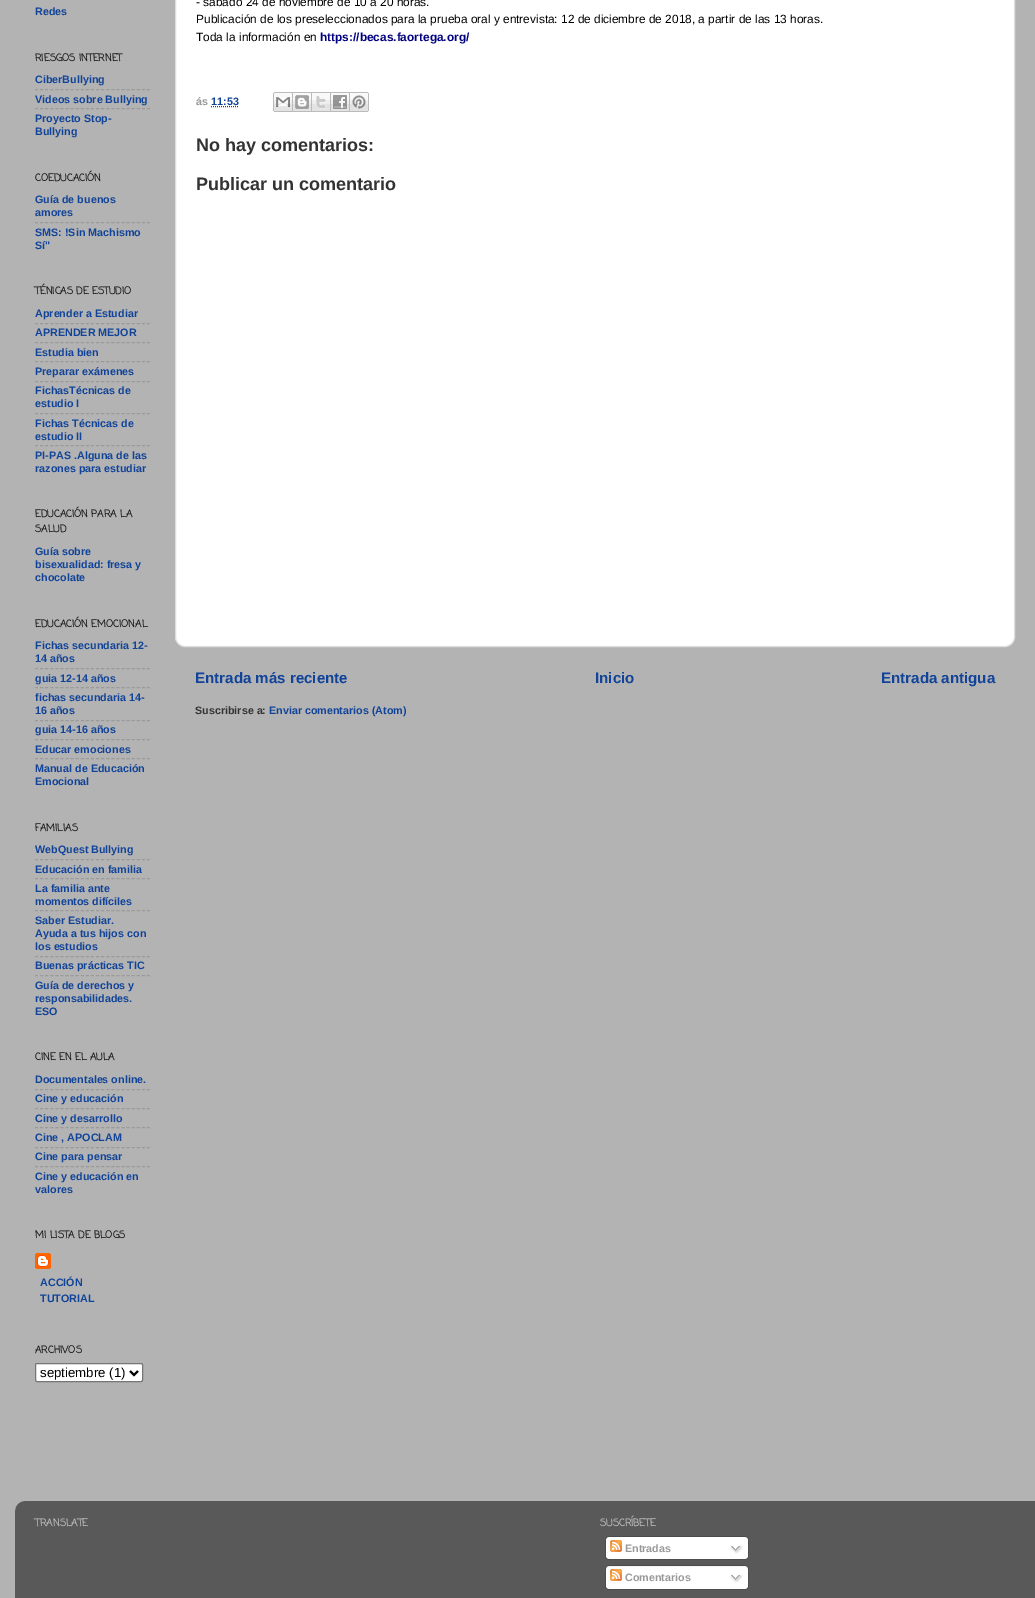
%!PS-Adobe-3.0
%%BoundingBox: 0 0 1035 1598
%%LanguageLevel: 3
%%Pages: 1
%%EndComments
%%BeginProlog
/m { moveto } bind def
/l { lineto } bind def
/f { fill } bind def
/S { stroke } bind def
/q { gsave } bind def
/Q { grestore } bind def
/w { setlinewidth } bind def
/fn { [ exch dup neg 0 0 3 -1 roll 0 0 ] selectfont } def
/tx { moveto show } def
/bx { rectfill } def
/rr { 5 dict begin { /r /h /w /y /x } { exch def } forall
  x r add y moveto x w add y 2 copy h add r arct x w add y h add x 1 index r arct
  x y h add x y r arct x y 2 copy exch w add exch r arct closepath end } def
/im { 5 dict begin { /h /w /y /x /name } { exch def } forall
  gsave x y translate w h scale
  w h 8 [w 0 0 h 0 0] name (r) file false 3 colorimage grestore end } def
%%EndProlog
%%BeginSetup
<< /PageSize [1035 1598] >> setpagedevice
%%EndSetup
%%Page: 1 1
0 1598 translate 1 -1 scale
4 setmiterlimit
0.702 setgray
0 0 1035 1598 bx
/LiberationSans-Bold 10.75 fn
0.067 0.267 0.6 setrgbcolor
(Redes) 35 15 tx
/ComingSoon-Bold 10 fn
0.098 setgray
(RIESGOS INTERNET) 35 61 tx
/LiberationSans-Bold 10.75 fn
0.067 0.267 0.6 setrgbcolor
(CiberBullying) 35 83 tx
0.604 setgray
[3 2.09] 0 setdash
35 89.5 m 150 89.5 l S
0.067 0.267 0.6 setrgbcolor
(Videos sobre Bullying) 35 103 tx
0.604 setgray
35 108.5 m 150 108.5 l S
0.067 0.267 0.6 setrgbcolor
(Proyecto Stop-) 35 122 tx
(Bullying) 35 135 tx
/ComingSoon-Bold 10 fn
0.098 setgray
(COEDUCACIÓN) 35 181 tx
/LiberationSans-Bold 10.75 fn
0.067 0.267 0.6 setrgbcolor
(Guía de buenos) 35 203 tx
(amores) 35 216 tx
0.604 setgray
35 222.5 m 150 222.5 l S
0.067 0.267 0.6 setrgbcolor
(SMS: !Sin Machismo) 35 236 tx
(Sí") 35 249 tx
/ComingSoon-Bold 10 fn
0.098 setgray
(TÉNICAS DE ESTUDIO) 35 294 tx
/LiberationSans-Bold 10.75 fn
0.067 0.267 0.6 setrgbcolor
(Aprender a Estudiar) 35 317 tx
0.604 setgray
35 323.5 m 150 323.5 l S
0.067 0.267 0.6 setrgbcolor
(APRENDER MEJOR) 35 336 tx
0.604 setgray
35 342.5 m 150 342.5 l S
0.067 0.267 0.6 setrgbcolor
(Estudia bien) 35 356 tx
0.604 setgray
35 361.5 m 150 361.5 l S
0.067 0.267 0.6 setrgbcolor
(Preparar exámenes) 35 375 tx
0.604 setgray
35 381.5 m 150 381.5 l S
0.067 0.267 0.6 setrgbcolor
(FichasTécnicas de) 35 394 tx
(estudio I) 35 407 tx
0.604 setgray
35 413.5 m 150 413.5 l S
0.067 0.267 0.6 setrgbcolor
(Fichas Técnicas de) 35 427 tx
(estudio II) 35 440 tx
0.604 setgray
35 445.5 m 150 445.5 l S
0.067 0.267 0.6 setrgbcolor
(PI-PAS .Alguna de las) 35 459 tx
(razones para estudiar) 35 472 tx
/ComingSoon-Bold 10 fn
0.098 setgray
(EDUCACIÓN PARA LA) 35 517 tx
(SALUD) 35 532 tx
/LiberationSans-Bold 10.75 fn
0.067 0.267 0.6 setrgbcolor
(Guía sobre) 35 555 tx
(bisexualidad: fresa y) 35 568 tx
(chocolate) 35 581 tx
/ComingSoon-Bold 10 fn
0.098 setgray
(EDUCACIÓN EMOCIONAL) 35 627 tx
/LiberationSans-Bold 10.75 fn
0.067 0.267 0.6 setrgbcolor
(Fichas secundaria 12-) 35 649 tx
(14 años) 35 662 tx
0.604 setgray
35 668.5 m 150 668.5 l S
0.067 0.267 0.6 setrgbcolor
(guia 12-14 años) 35 682 tx
0.604 setgray
35 687.5 m 150 687.5 l S
0.067 0.267 0.6 setrgbcolor
(fichas secundaria 14-) 35 701 tx
(16 años) 35 714 tx
0.604 setgray
35 720.5 m 150 720.5 l S
0.067 0.267 0.6 setrgbcolor
(guia 14-16 años) 35 733 tx
0.604 setgray
35 739.5 m 150 739.5 l S
0.067 0.267 0.6 setrgbcolor
(Educar emociones) 35 753 tx
0.604 setgray
35 758.5 m 150 758.5 l S
0.067 0.267 0.6 setrgbcolor
(Manual de Educación) 35 772 tx
(Emocional) 35 785 tx
/ComingSoon-Bold 10 fn
0.098 setgray
(FAMILIAS) 35 831 tx
/LiberationSans-Bold 10.75 fn
0.067 0.267 0.6 setrgbcolor
(WebQuest Bullying) 35 853 tx
0.604 setgray
35 859.5 m 150 859.5 l S
0.067 0.267 0.6 setrgbcolor
(Educación en familia) 35 873 tx
0.604 setgray
35 878.5 m 150 878.5 l S
0.067 0.267 0.6 setrgbcolor
(La familia ante) 35 892 tx
(momentos difíciles) 35 905 tx
0.604 setgray
35 910.5 m 150 910.5 l S
0.067 0.267 0.6 setrgbcolor
(Saber Estudiar.) 35 924 tx
(Ayuda a tus hijos con) 35 937 tx
(los estudios) 35 950 tx
0.604 setgray
35 956.5 m 150 956.5 l S
0.067 0.267 0.6 setrgbcolor
(Buenas prácticas TIC) 35 969 tx
0.604 setgray
35 975.5 m 150 975.5 l S
0.067 0.267 0.6 setrgbcolor
(Guía de derechos y) 35 989 tx
(responsabilidades.) 35 1002 tx
(ESO) 35 1015 tx
/ComingSoon-Bold 10 fn
0.098 setgray
(CINE EN EL AULA) 35 1060 tx
/LiberationSans-Bold 10.75 fn
0.067 0.267 0.6 setrgbcolor
(Documentales online.) 35 1083 tx
0.604 setgray
35 1089.5 m 150 1089.5 l S
0.067 0.267 0.6 setrgbcolor
(Cine y educación) 35 1102 tx
0.604 setgray
35 1108.5 m 150 1108.5 l S
0.067 0.267 0.6 setrgbcolor
(Cine y desarrollo) 35 1122 tx
0.604 setgray
35 1127.5 m 150 1127.5 l S
0.067 0.267 0.6 setrgbcolor
(Cine , APOCLAM) 35 1141 tx
0.604 setgray
35 1147.5 m 150 1147.5 l S
0.067 0.267 0.6 setrgbcolor
(Cine para pensar) 35 1160 tx
0.604 setgray
35 1166.5 m 150 1166.5 l S
0.067 0.267 0.6 setrgbcolor
(Cine y educación en) 35 1180 tx
(valores) 35 1193 tx
/ComingSoon-Bold 10 fn
0.098 setgray
(MI LISTA DE BLOGS) 35 1238 tx
(image0.raw) 35 1253 16 16 im
/LiberationSans-Bold 10.75 fn
0.067 0.267 0.6 setrgbcolor
(ACCIÓN) 40 1286 tx
(TUTORIAL) 40 1302 tx
/ComingSoon-Bold 10 fn
0.098 setgray
(ARCHIVOS) 35 1353 tx
1 setgray
35.5 1363.5 107 18 1.5 rr q f Q
0.463 setgray
[] 0 setdash
S
0 setgray
2 w
130 1371 m 134 1375 l 138 1371 l S
/LiberationSans-Regular 13.25 fn
(septiembre \(1\)) 40 1377 tx
1 setgray
175.5 -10.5 839 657 9.5 rr q f Q
0.867 setgray
1 w
S
/LiberationSans-Regular 11.88 fn
0 setgray
(- sábado 24 de noviembre de 10 a 20 horas.) 196 6 tx
(Publicación de los preseleccionados para la prueba oral y entrevista: 12 de diciembre de 2018, a partir de las 13 horas.) 196 23 tx
(Toda la información en) 196 41 tx
/LiberationSans-Bold 11.88 fn
0 0 0.502 setrgbcolor
(https://becas.faortega.org/) 320 41 tx
/LiberationSans-Bold 10.75 fn
0.6 setgray
(ás) 196 105 tx
0.067 0.267 0.6 setrgbcolor
(11:53) 211 105 tx
[1 1] 0 setdash
211 106.5 m 238.5 106.5 l S
(image1.raw) 273 92 20 20 im
(image2.raw) 293 92 19 20 im
(image3.raw) 312 92 19 20 im
(image4.raw) 331 92 19 20 im
(image5.raw) 350 92 19 20 im
/LiberationSans-Bold 18 fn
0.2 setgray
(No hay comentarios:) 196 151 tx
(Publicar un comentario) 196 190 tx
/LiberationSans-Bold 15.1 fn
0.067 0.267 0.6 setrgbcolor
(Entrada más reciente) 195 683 tx
(Inicio) 595 683 tx
(Entrada antigua) 881 683 tx
/LiberationSans-Bold 10.75 fn
0.2 setgray
(Suscribirse a:) 195 714 tx
0.067 0.267 0.6 setrgbcolor
(Enviar comentarios \(Atom\)) 269 714 tx
(image6.raw) 15 1501 1020 97 im
/ComingSoon-Bold 10 fn
0.733 setgray
(TRANSLATE) 35 1526 tx
(SUSCRÍBETE) 600 1526 tx
(image7.raw) 605 1536 144 21 im
(image8.raw) 610 1540 12 12 im
/LiberationSans-Bold 10.75 fn
0.6 setgray
(Entradas) 625 1552 tx
(image9.raw) 730 1545 13 9 im
(image10.raw) 605 1557 144 3 im
(image11.raw) 605 1565 144 22 im
(image8.raw) 610 1569 12 12 im
(Comentarios) 625 1581 tx
(image9.raw) 730 1574 13 9 im
(image10.raw) 605 1587 144 3 im
showpage
%%EOF
